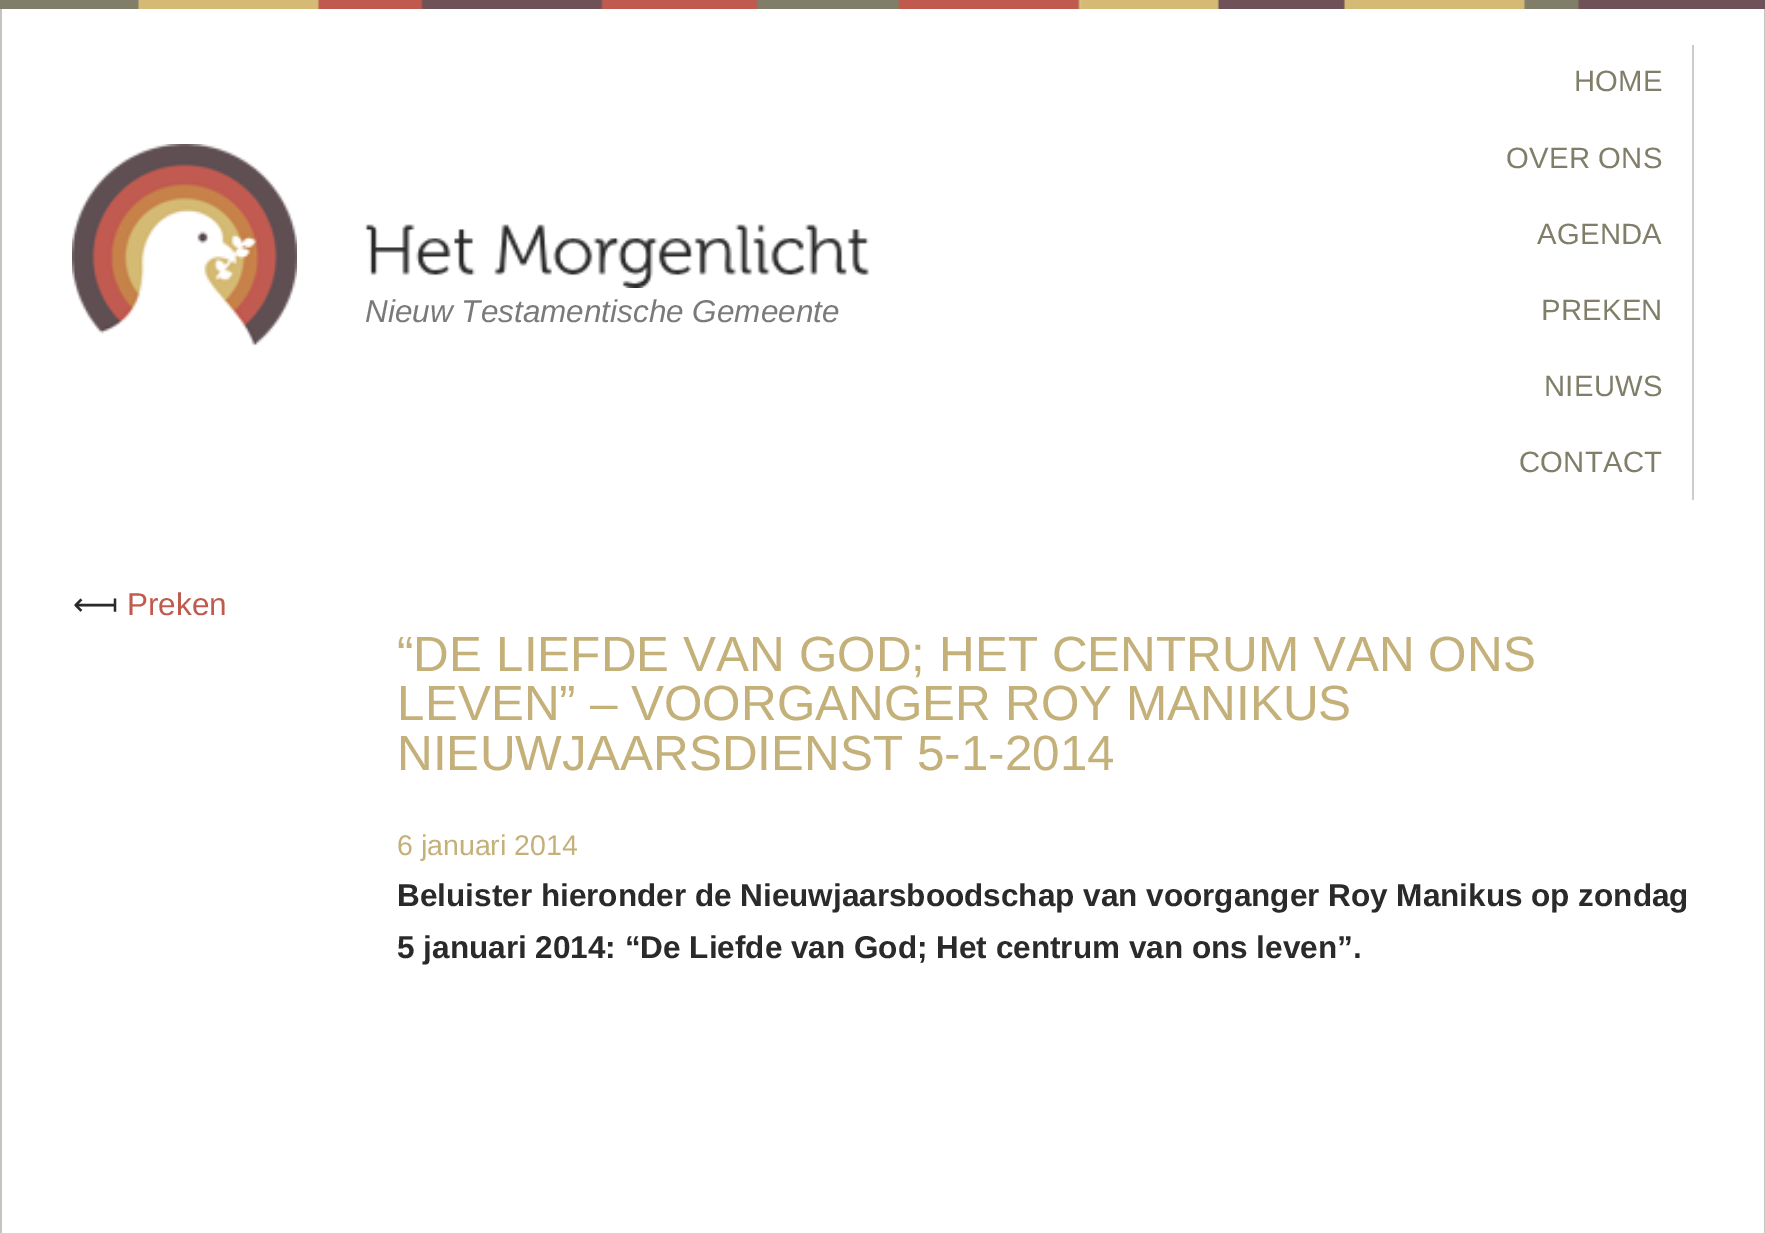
%!PS-Adobe-3.0
%%BoundingBox: 0 0 1765 1233
%%LanguageLevel: 3
%%Pages: 1
%%EndComments
%%BeginProlog
/m { moveto } bind def
/fn { [ exch dup neg 0 0 3 -1 roll 0 0 ] selectfont } def
/tx { moveto show } def
/bx { rectfill } def
/im { 5 dict begin { /h /w /y /x /name } { exch def } forall
  gsave x y translate w h scale
  w h 8 [w 0 0 h 0 0] name (r) file false 3 colorimage grestore end } def
%%EndProlog
%%BeginSetup
<< /PageSize [1765 1233] >> setpagedevice
%%EndSetup
%%Page: 1 1
0 1233 translate 1 -1 scale
4 setmiterlimit
1 setgray
0 0 1765 1233 bx
(image0.raw) 0 0 1765 9 im
0.773 0.769 0.749 setrgbcolor
1764 9 1 1224 bx
0 9 2 1224 bx
(image1.raw) 72 144 225 202 im
(image2.raw) 364 224 112 52 im
(image3.raw) 494 224 376 64 im
/LiberationSans-Italic 31.5 fn
0.478 setgray
(Nieuw Testamentische Gemeente) 365 322 tx
0.8 setgray
1692 45 2 455 bx
/LiberationSans-Regular 29.25 fn
0.502 0.494 0.412 setrgbcolor
1574 91 m 0.25 0 (HOME) ashow
1506 168 m 0.25 0 (OVER ONS) ashow
1537 244 m 0.25 0 (AGENDA) ashow
1541 320 m 0.25 0 (PREKEN) ashow
1544 396 m 0.25 0 (NIEUWS) ashow
1519 472 m 0.25 0 (CONTACT) ashow
/DejaVuSans-Regular 31.5 fn
0.165 setgray
(⟻) 73 615 tx
/LiberationSans-Regular 31.5 fn
0.753 0.353 0.31 setrgbcolor
(Preken) 127 615 tx
/LiberationSans-Regular 49.5 fn
0.769 0.69 0.475 setrgbcolor
(“DE LIEFDE VAN GOD; HET CENTRUM VAN ONS) 397 671 tx
(LEVEN” – VOORGANGER ROY MANIKUS) 397 720 tx
(NIEUWJAARSDIENST 5-1-2014) 397 770 tx
/LiberationSans-Regular 28.5 fn
(6 januari 2014) 397 855 tx
/LiberationSans-Bold 31.5 fn
0.165 setgray
(Beluister hieronder de Nieuwjaarsboodschap van voorganger Roy Manikus op zondag) 397 906 tx
(5 januari 2014: “De Liefde van God; Het centrum van ons leven”.) 397 958 tx
showpage
%%EOF
